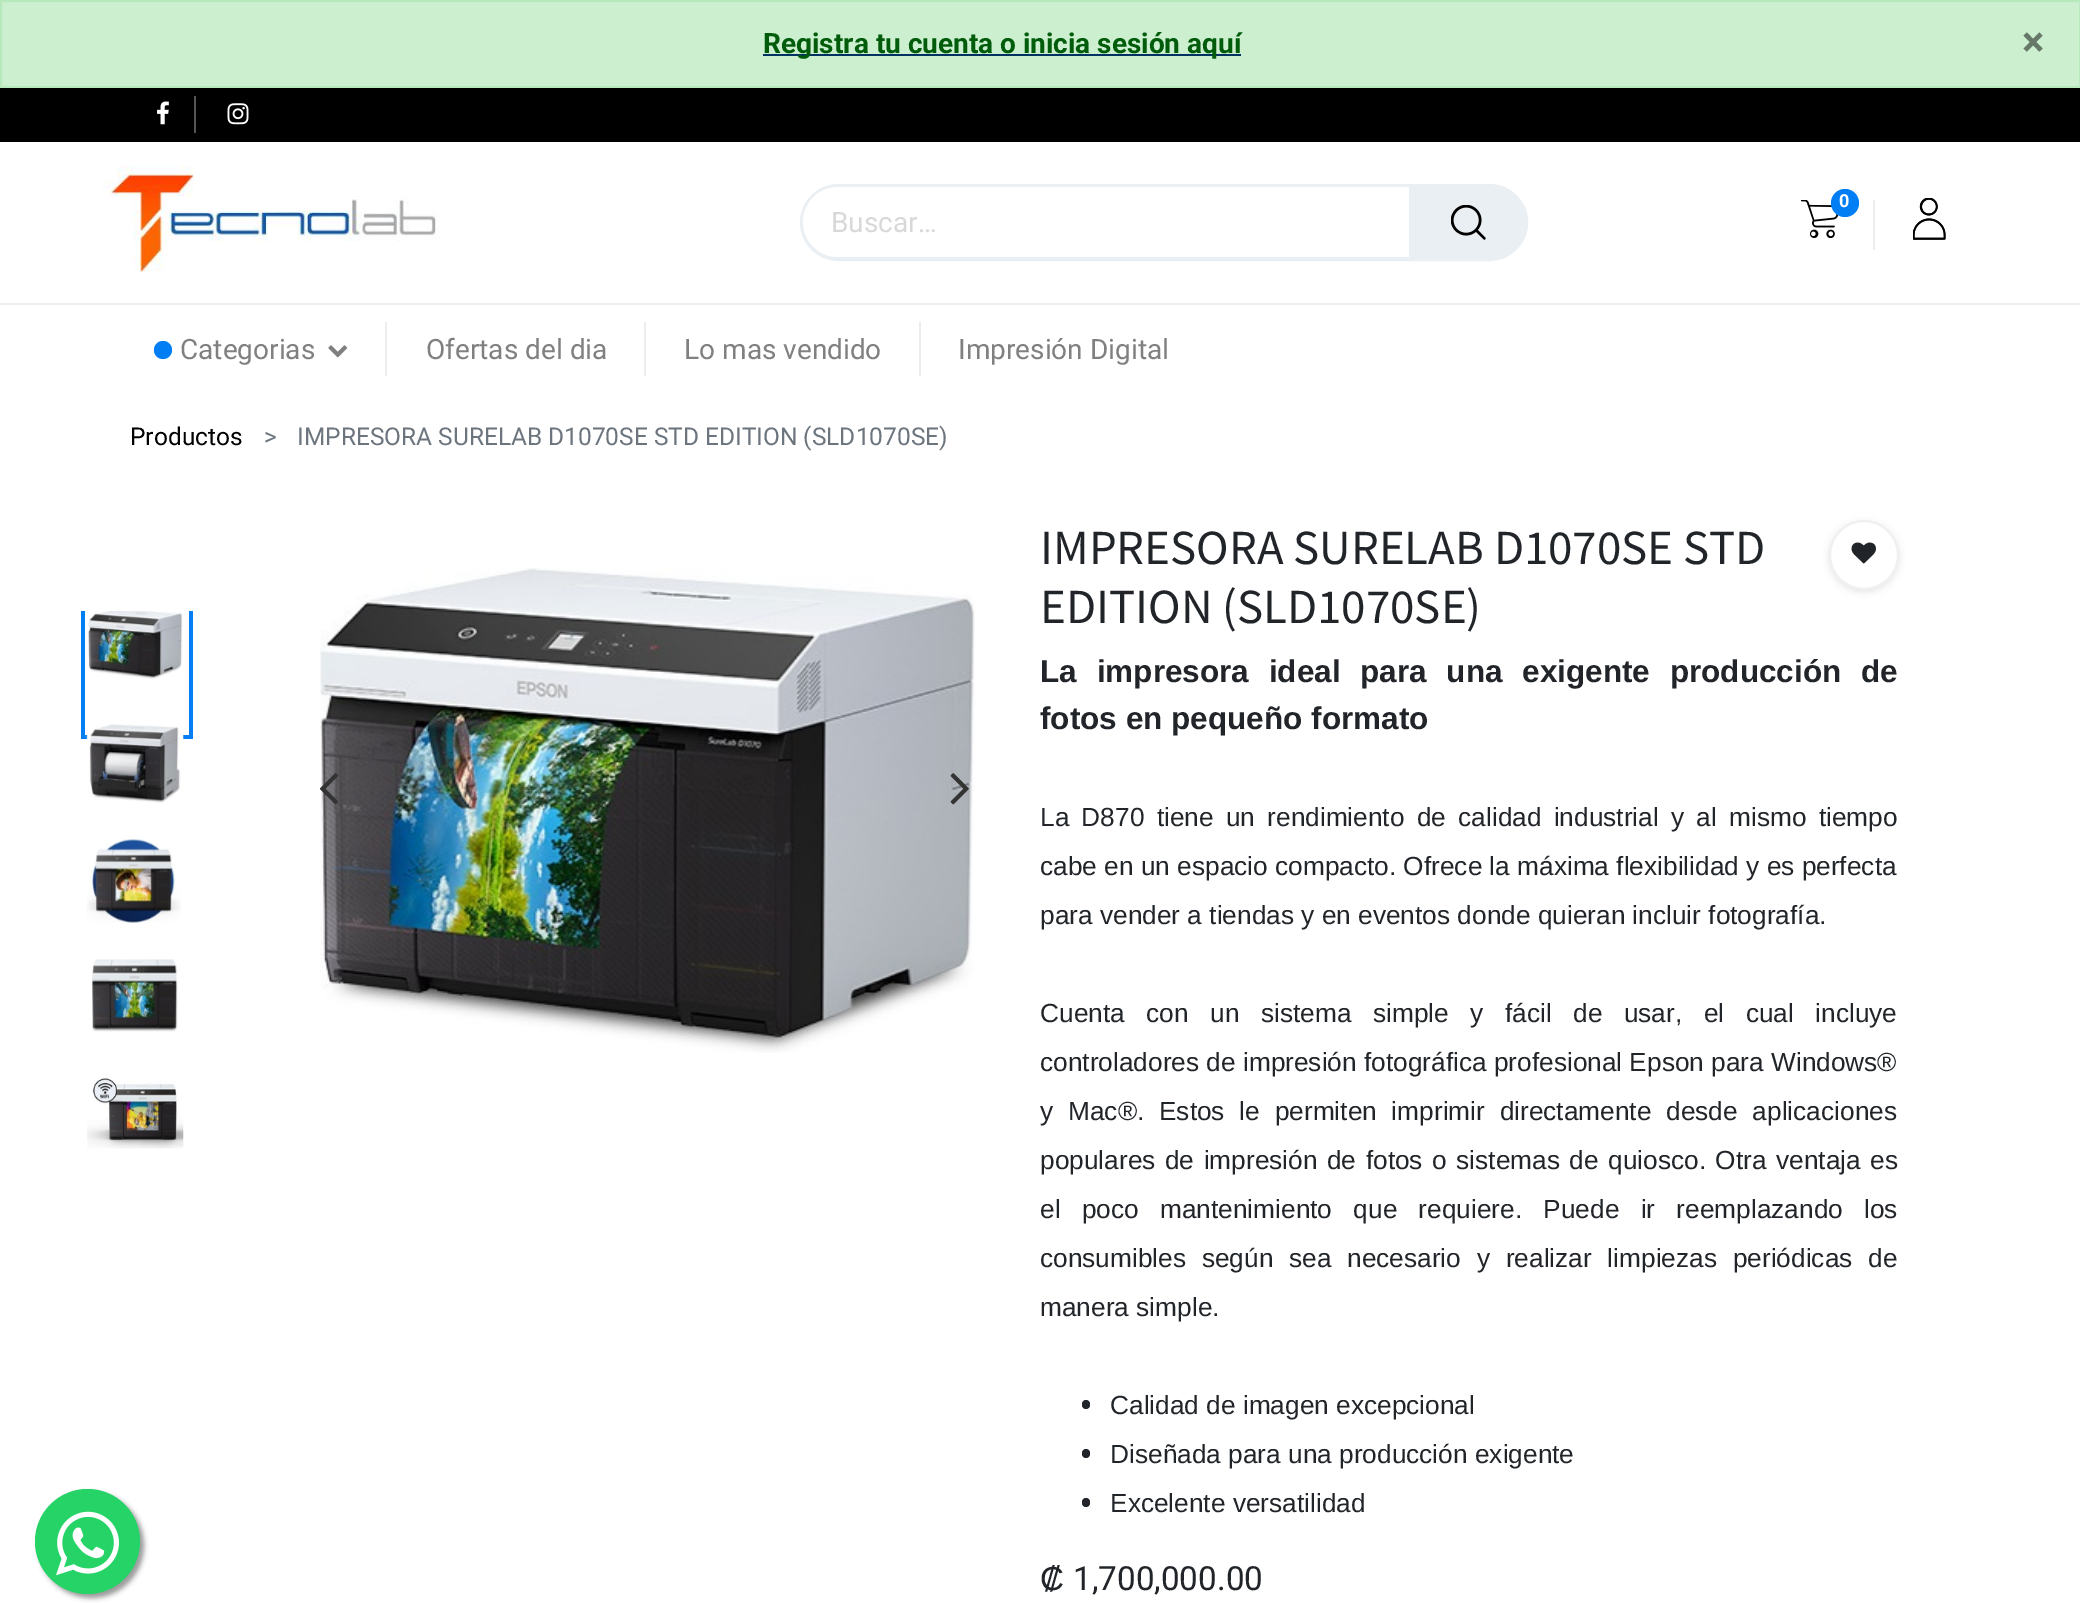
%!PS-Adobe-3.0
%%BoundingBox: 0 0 2080 1603
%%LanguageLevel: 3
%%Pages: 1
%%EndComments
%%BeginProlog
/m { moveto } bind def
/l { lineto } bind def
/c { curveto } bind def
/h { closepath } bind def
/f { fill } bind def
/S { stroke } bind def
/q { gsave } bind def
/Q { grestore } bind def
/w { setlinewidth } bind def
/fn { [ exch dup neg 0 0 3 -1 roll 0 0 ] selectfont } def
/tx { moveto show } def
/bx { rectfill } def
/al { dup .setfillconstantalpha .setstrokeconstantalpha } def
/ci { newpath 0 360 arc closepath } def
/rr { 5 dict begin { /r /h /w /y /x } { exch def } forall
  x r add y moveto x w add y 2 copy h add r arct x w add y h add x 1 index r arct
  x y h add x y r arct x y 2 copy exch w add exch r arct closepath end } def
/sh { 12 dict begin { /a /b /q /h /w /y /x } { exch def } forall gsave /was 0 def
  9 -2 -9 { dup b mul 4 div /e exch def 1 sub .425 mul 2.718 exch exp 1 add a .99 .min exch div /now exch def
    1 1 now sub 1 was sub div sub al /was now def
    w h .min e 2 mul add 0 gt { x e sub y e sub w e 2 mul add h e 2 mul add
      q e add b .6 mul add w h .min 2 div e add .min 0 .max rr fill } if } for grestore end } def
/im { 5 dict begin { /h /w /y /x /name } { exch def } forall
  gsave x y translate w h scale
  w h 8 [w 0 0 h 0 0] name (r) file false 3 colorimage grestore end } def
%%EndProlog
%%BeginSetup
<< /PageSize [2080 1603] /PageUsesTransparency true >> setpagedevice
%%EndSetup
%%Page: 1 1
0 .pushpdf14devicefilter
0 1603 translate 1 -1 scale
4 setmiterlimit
1 setgray
0 0 2080 1603 bx
0.8 0.937 0.816 setrgbcolor
1 1 m 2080 1 l 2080 87 l 1 87 l h q f Q
0.722 0.914 0.741 setrgbcolor
2 w
S
0 0.196 0.38 setrgbcolor
763 54 478 2 bx
/Roboto-Bold 28 fn
0 0.361 0.043 setrgbcolor
(Registra tu cuenta o inicia sesión aquí) 763 53 tx
/Roboto-Bold 42 fn
0.4 0.471 0.408 setrgbcolor
(×) 2022 56 tx
0.6 setgray
39 1493 105 105 52.5 2.5 1 sh
0.145 0.827 0.4 setrgbcolor
87.5 1541.5 52.5 ci f
(image0.raw) 56 1511 63 65 im
0 setgray
0 88 2080 54 bx
0.333 setgray
194 96 2 37 bx
(image1.raw) 157 101 12 24 im
(image2.raw) 227 103 22 22 im
(image3.raw) 103 166 337 107 im
0.929 setgray
1873 200 2 50 bx
(image4.raw) 1801 200 38 38 im
0.004 0.494 0.957 setrgbcolor
1845 203 14 ci f
/Roboto-Bold 18 fn
1 setgray
(0) 1839 207 tx
(image5.raw) 1913 198 33 42 im
(image6.raw) 1913 198 33 42 im
0.918 0.937 0.953 setrgbcolor
4 w
802 186 724 73 36.5 rr S
1 setgray
803 187 723 70 35 rr f
/Roboto-Regular 28 fn
0.847 setgray
(Buscar…) 831 232 tx
0.918 0.937 0.953 setrgbcolor
1409 187 m 1493 187 l 1512.5 187 1528 202.5 1528 222 c 1528 241.5 1512.5 257 1493 257 c 1409 257 l h f
(image7.raw) 1451 205 35 35 im
0.929 setgray
0 303 2080 2 bx
0.004 0.494 0.957 setrgbcolor
163 350 9 ci f
0.502 setgray
(Categorias) 180 359 tx
(image8.raw) 328 345 20 13 im
0.929 setgray
385 322 2 54 bx
0.502 setgray
(Ofertas del dia) 426 359 tx
0.929 setgray
644 322 2 54 bx
0.502 setgray
(Lo mas vendido) 684 359 tx
0.929 setgray
919 322 2 54 bx
0.502 setgray
(Impresión Digital) 958 359 tx
/Roboto-Regular 24.5 fn
0 setgray
(Productos) 130 445 tx
0.424 0.459 0.49 setrgbcolor
(>) 264 445 tx
(IMPRESORA SURELAB D1070SE STD EDITION \(SLD1070SE\)) 297 445 tx
0.004 0.494 0.957 setrgbcolor
193 611 m 193 739 l 81 739 l 81 611 l 85 611 l 85 735 l 189 735 l 189 611 l h f
(image9.raw) 88 611 95 68 im
(image10.raw) 86 724 98 79 im
(image11.raw) 87 839 94 84 im
(image12.raw) 92 959 86 73 im
(image13.raw) 87 1076 97 73 im
(image14.raw) 320 568 655 485 im
(image15.raw) 319 773 19 32 im
(image16.raw) 950 773 19 32 im
/SourceSansPro-Regular 49 fn
0.129 0.145 0.161 setrgbcolor
(IMPRESORA SURELAB D1070SE STD) 1040 564 tx
(EDITION \(SLD1070SE\)) 1040 623 tx
0 setgray
1829 522 70 70 35 3.5 0.1 sh
1 setgray
1864 555 34 ci q f Q
0.941 setgray
2 w
S
(image17.raw) 1851 542 25 22 im
/LiberationSans-Bold 31.5 fn
0.129 0.145 0.161 setrgbcolor
1040 682 m 11 0 32 (La impresora ideal para una exigente producción de) widthshow
(fotos en pequeño formato) 1040 729 tx
/LiberationSans-Regular 26.25 fn
1040 826 m 5 0 32 (La D870 tiene un rendimiento de calidad industrial y al mismo tiempo) widthshow
(cabe en un espacio compacto. Ofrece la máxima flexibilidad y es perfecta) 1040 875 tx
(para vender a tiendas y en eventos donde quieran incluir fotografía.) 1040 924 tx
1040 1022 m 14.25 0 32 (Cuenta con un sistema simple y fácil de usar, el cual incluye) widthshow
(controladores de impresión fotográfica profesional Epson para Windows®) 1040 1071 tx
1040 1120 m 7.5 0 32 (y Mac®. Estos le permiten imprimir directamente desde aplicaciones) widthshow
1040 1169 m 2.25 0 32 (populares de impresión de fotos o sistemas de quiosco. Otra ventaja es) widthshow
1040 1218 m 14 0 32 (el poco mantenimiento que requiere. Puede ir reemplazando los) widthshow
1040 1267 m 8.5 0 32 (consumibles según sea necesario y realizar limpiezas periódicas de) widthshow
(manera simple.) 1040 1316 tx
1082 1400 8 9 4 rr f
(Calidad de imagen excepcional) 1110 1414 tx
1082 1449 8 9 4 rr f
(Diseñada para una producción exigente) 1110 1463 tx
1082 1498 8 9 4 rr f
(Excelente versatilidad) 1110 1512 tx
/LiberationSans-Regular 33.25 fn
(₡) 1040 1590 tx
/Roboto-Regular 33.25 fn
(1,700,000.00) 1073 1590 tx
.poppdf14devicefilter showpage
%%EOF
